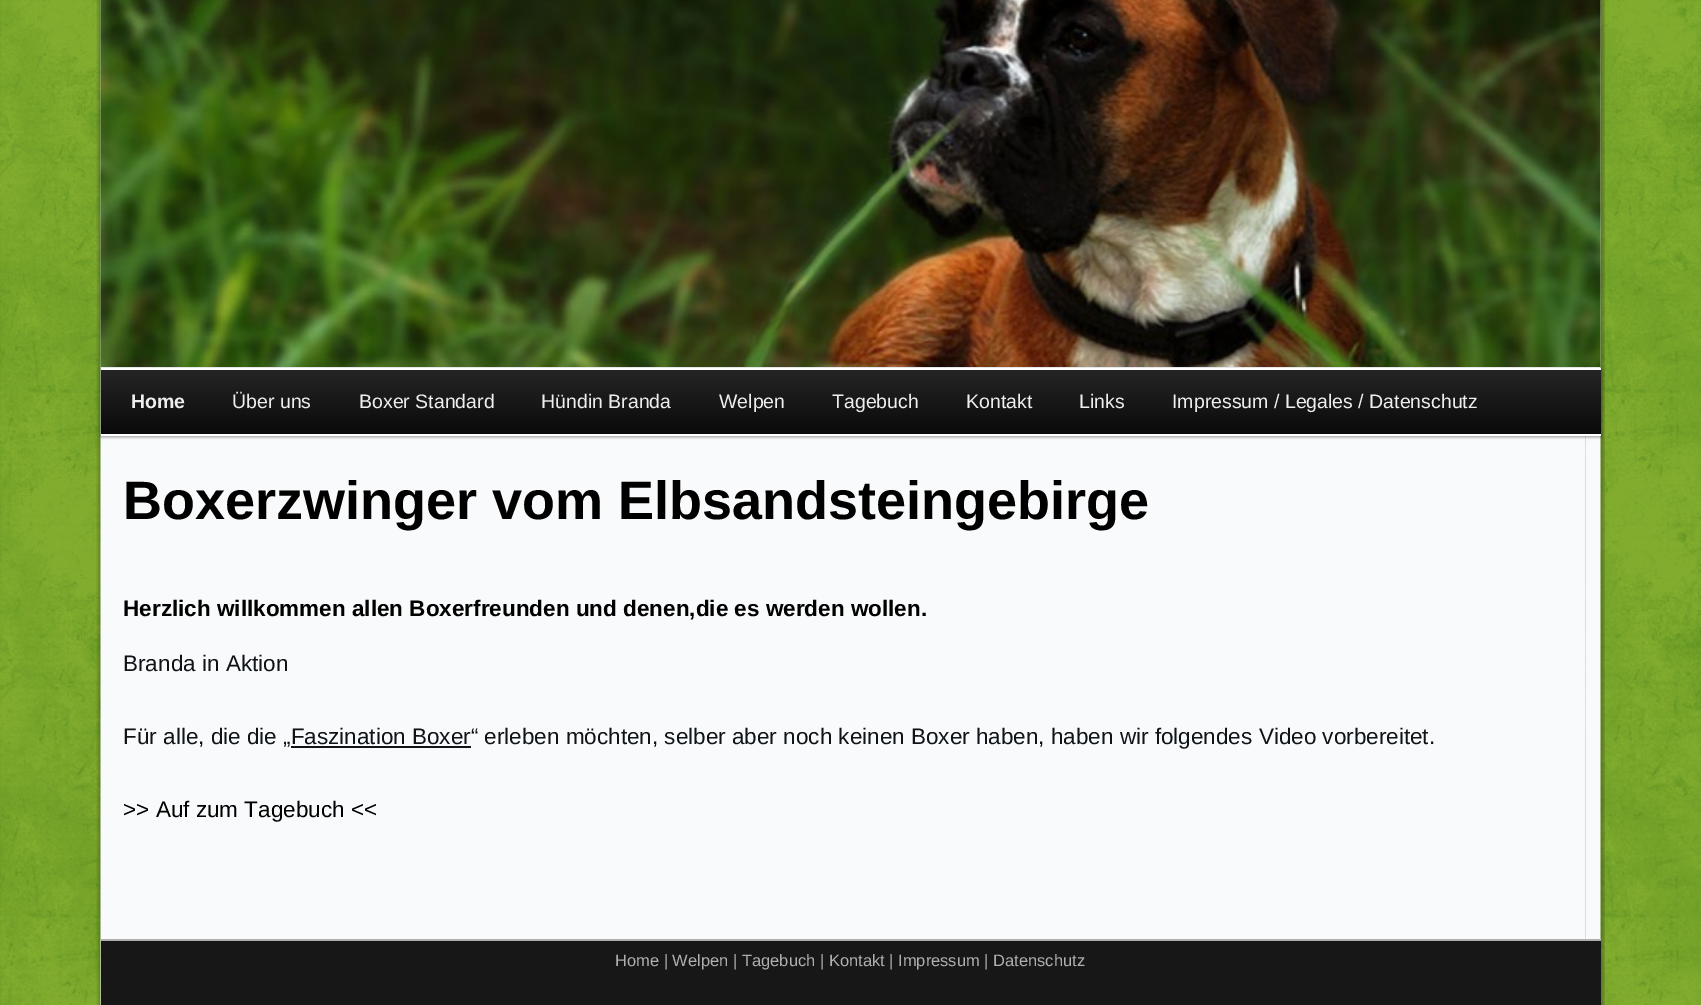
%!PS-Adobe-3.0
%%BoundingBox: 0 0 1701 1005
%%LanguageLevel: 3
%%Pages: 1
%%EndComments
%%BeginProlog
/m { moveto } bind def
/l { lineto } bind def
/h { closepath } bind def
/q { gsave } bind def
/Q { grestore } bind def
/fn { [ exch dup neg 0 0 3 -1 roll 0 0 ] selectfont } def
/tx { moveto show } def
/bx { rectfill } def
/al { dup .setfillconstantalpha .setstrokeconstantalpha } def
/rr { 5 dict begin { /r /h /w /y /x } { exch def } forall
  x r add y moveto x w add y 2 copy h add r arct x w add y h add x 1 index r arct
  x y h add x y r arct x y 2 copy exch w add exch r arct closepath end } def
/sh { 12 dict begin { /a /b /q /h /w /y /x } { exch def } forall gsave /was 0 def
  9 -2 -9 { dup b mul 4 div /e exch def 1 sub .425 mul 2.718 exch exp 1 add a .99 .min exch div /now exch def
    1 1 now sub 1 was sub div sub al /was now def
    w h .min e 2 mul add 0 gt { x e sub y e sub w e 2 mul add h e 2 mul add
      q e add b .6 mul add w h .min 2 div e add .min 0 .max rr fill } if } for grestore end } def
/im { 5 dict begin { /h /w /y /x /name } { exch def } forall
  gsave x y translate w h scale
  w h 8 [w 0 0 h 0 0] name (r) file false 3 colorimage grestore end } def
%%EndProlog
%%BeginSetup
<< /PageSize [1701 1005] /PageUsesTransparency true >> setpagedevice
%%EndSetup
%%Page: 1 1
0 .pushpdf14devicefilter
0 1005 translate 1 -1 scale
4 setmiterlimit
1 setgray
0 0 1701 1005 bx
(image0.raw) 0 0 1701 1005 im
(image1.raw) 96 0 1490 1005 im
(image2.raw) 1585 0 20 1005 im
0 setgray
101 369 1500 68 0 1.5 0.4 sh
(image3.raw) 100 0 1501 367 im
q 101 370 m 1601 370 l 1601 434 l 101 434 l h clip newpath
<< /ShadingType 2 /ColorSpace /DeviceRGB /Coords [851 369 851 434] /Extend [true true] /Function << /FunctionType 2 /Domain [0 1] /C0 [0.145 0.145 0.145] /C1 [0.039 0.039 0.039] /N 1 >> >> shfill Q
1 setgray
101 368 1500 2 bx
101 434 1500 2 bx
/LiberationSans-Bold 19.5 fn
0.933 setgray
(Home) 131 408 tx
/LiberationSans-Regular 19.5 fn
(Über uns) 232 408 tx
(Boxer Standard) 359 408 tx
(Hündin Branda) 541 408 tx
(Welpen) 719 408 tx
(Tagebuch) 832 408 tx
(Kontakt) 966 408 tx
(Links) 1079 408 tx
(Impressum / Legales / Datenschutz) 1172 408 tx
/LiberationSans-Bold 54 fn
0 setgray
(Boxerzwinger vom Elbsandsteingebirge) 123 519 tx
/LiberationSans-Bold 22.5 fn
(Herzlich willkommen allen Boxerfreunden und denen,die es werden wollen.) 123 616 tx
/LiberationSans-Regular 22.5 fn
0.059 0.078 0.098 setrgbcolor
(Branda in Aktion) 123 671 tx
(Für alle, die die „Faszination Boxer“ erleben möchten, selber aber noch keinen Boxer haben, haben wir folgendes Video vorbereitet.) 123 744 tx
291 746 180 2 bx
0 setgray
(>> Auf zum Tagebuch <<) 123 817 tx
0.09 setgray
101 941 1500 64 bx
0.686 setgray
101 939 1500 2 bx
/LiberationSans-Regular 16.5 fn
(Home | Welpen | Tagebuch | Kontakt | Impressum | Datenschutz) 615 966 tx
.poppdf14devicefilter showpage
%%EOF
